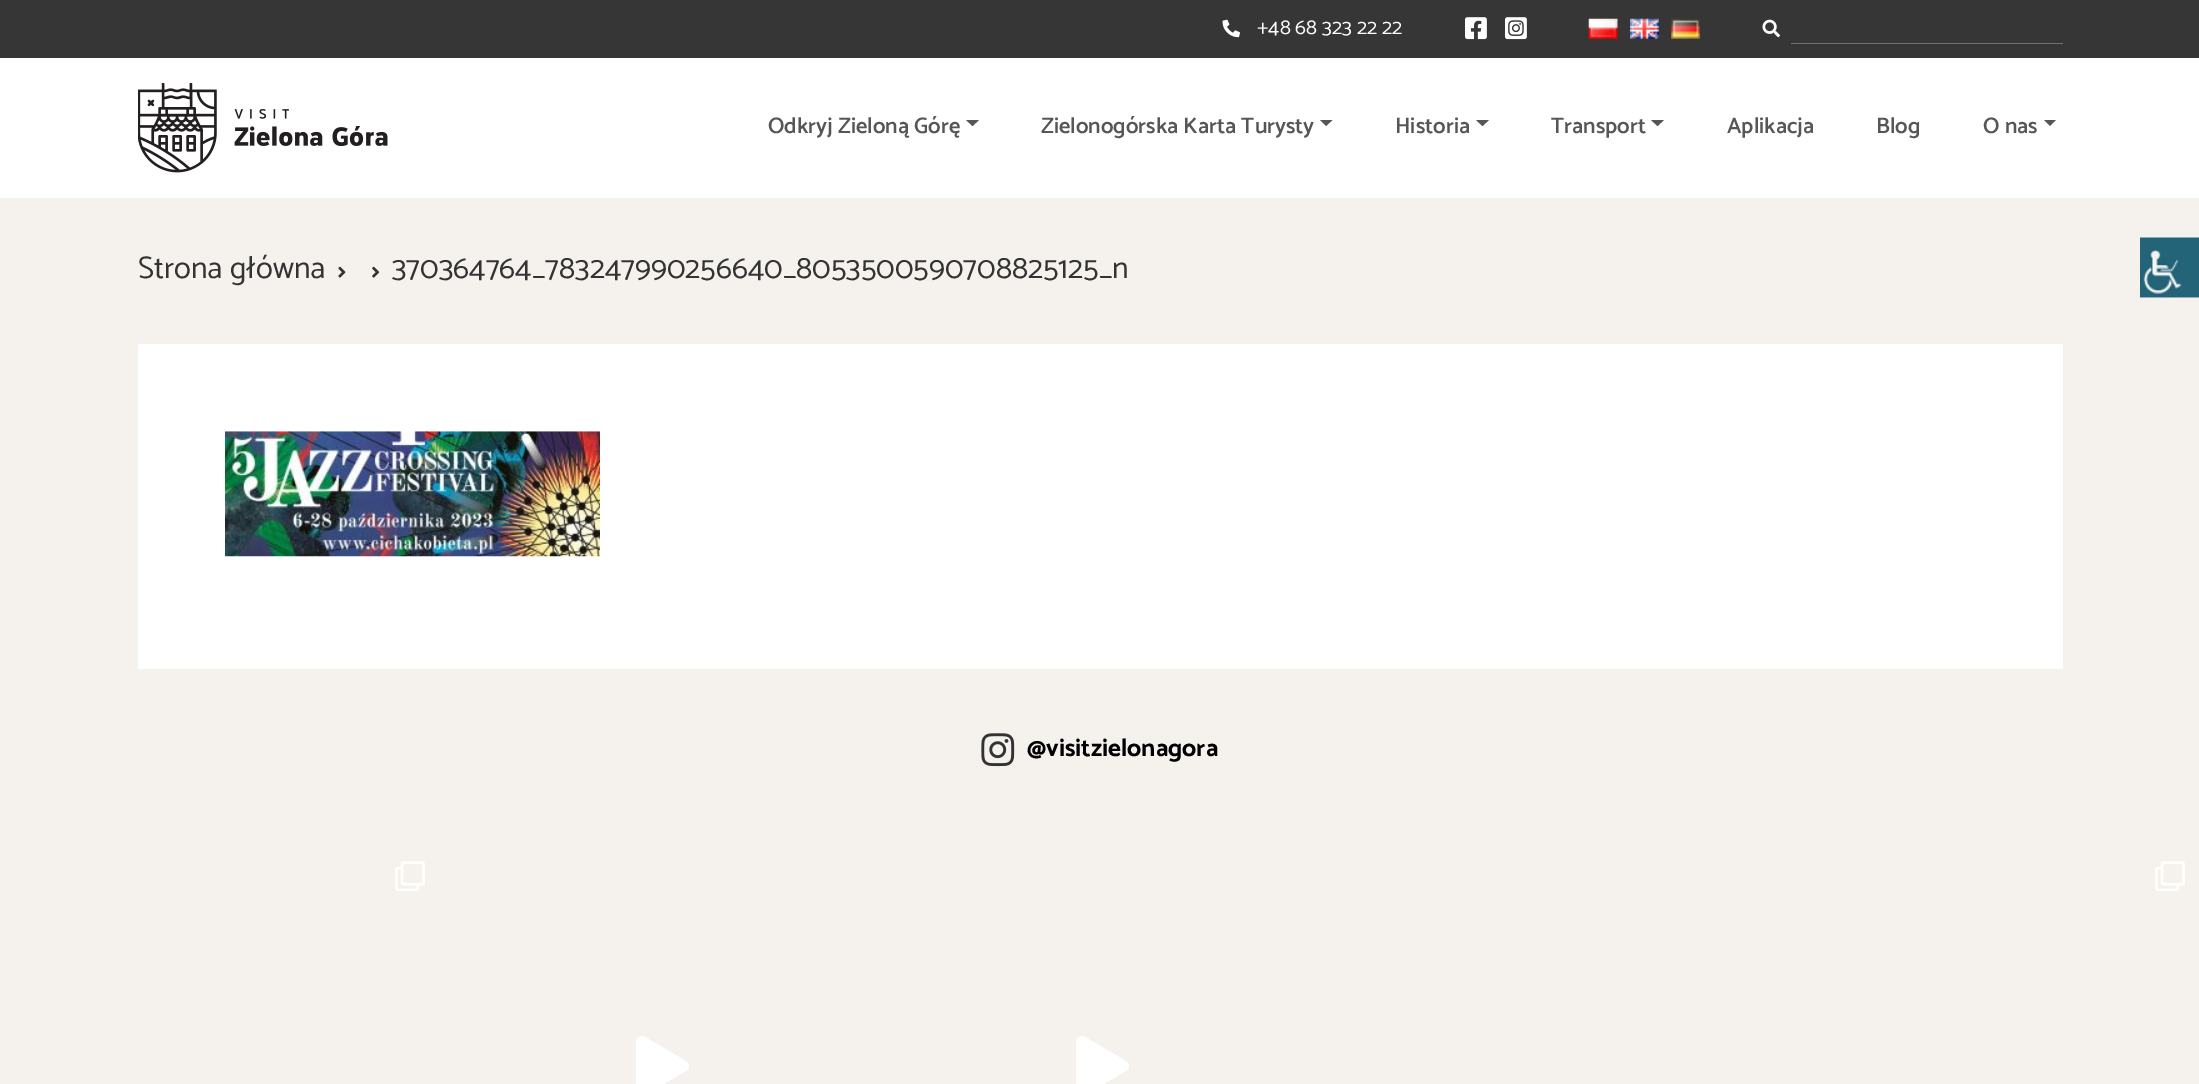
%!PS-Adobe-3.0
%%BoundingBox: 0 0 2199 1084
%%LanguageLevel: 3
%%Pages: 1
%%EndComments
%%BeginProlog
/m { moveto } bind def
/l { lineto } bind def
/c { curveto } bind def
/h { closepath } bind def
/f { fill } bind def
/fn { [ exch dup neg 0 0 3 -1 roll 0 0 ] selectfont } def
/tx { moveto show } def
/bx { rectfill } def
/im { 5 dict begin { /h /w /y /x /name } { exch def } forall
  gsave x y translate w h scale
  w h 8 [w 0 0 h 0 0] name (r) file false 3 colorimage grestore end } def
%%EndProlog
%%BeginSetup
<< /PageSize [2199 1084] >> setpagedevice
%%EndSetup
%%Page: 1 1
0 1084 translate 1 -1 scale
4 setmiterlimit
1 setgray
0 0 2199 1084 bx
0.212 setgray
0 0 2199 58 bx
(image0.raw) 1222 19 18 19 im
/Catamaran-Regular 21.25 fn
1 setgray
(+48 68 323 22 22) 1257 34 tx
(image1.raw) 1465 17 22 23 im
(image2.raw) 1505 17 22 23 im
(image3.raw) 1588 18 30 21 im
(image4.raw) 1630 18 29 21 im
(image5.raw) 1671 18 29 21 im
(image6.raw) 1762 19 18 19 im
0.443 setgray
1791 43 272 1 bx
(image7.raw) 138 83 250 90 im
/Catamaran-SemiBold 22.5 fn
0.345 0.333 0.333 setrgbcolor
(Odkryj Zieloną Górę) 768 133 tx
966 120 m 979 120 l 972.5 126 l h f
(Zielonogórska Karta Turysty) 1041 133 tx
1320 120 m 1332.5 120 l 1326 126 l h f
(Historia) 1395 133 tx
1476 120 m 1489 120 l 1482.5 126 l h f
(Transport) 1551 133 tx
1651 120 m 1664 120 l 1657.5 126 l h f
(Aplikacja) 1727 133 tx
(Blog) 1876 133 tx
(O nas) 1983 133 tx
2044 120 m 2056 120 l 2050 126 l h f
0.961 0.945 0.929 setrgbcolor
0 198 2199 886 bx
/Catamaran-Regular 31.25 fn
0.2 setgray
(Strona główna) 138 278 tx
(image8.raw) 338 266 8 12 im
(image9.raw) 372 266 8 12 im
(370364764_783247990256640_8053500590708825125_n) 392 278 tx
1 setgray
138 344 1925 325 bx
(image10.raw) 225 431 375 126 im
(image11.raw) 981 733 34 34 im
/Catamaran-Bold 25 fn
0 setgray
(@visitzielonagora) 1027 756 tx
(image12.raw) 395 861 30 30 im
(image12.raw) 2155 861 30 30 im
1 setgray
686 1061 m 645 1037 l 641 1035 636 1037 636 1042 c 636 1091 l 636 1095 641 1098 645 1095 c 686 1071 l 690 1069 690 1064 686 1061 c h f
1126 1061 m 1085 1037 l 1081 1035 1076 1037 1076 1042 c 1076 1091 l 1076 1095 1081 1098 1085 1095 c 1126 1071 l 1130 1069 1130 1064 1126 1061 c h f
2140 297 59 1 bx
(image13.raw) 2140 237 59 61 im
showpage
%%EOF
